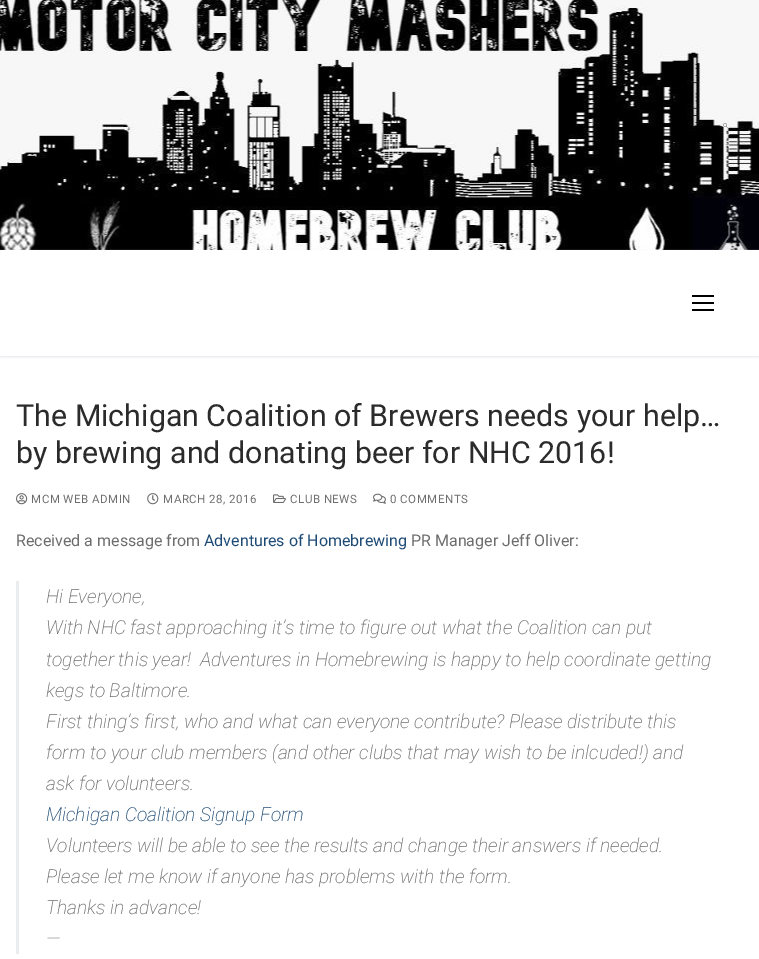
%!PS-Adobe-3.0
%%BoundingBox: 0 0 759 959
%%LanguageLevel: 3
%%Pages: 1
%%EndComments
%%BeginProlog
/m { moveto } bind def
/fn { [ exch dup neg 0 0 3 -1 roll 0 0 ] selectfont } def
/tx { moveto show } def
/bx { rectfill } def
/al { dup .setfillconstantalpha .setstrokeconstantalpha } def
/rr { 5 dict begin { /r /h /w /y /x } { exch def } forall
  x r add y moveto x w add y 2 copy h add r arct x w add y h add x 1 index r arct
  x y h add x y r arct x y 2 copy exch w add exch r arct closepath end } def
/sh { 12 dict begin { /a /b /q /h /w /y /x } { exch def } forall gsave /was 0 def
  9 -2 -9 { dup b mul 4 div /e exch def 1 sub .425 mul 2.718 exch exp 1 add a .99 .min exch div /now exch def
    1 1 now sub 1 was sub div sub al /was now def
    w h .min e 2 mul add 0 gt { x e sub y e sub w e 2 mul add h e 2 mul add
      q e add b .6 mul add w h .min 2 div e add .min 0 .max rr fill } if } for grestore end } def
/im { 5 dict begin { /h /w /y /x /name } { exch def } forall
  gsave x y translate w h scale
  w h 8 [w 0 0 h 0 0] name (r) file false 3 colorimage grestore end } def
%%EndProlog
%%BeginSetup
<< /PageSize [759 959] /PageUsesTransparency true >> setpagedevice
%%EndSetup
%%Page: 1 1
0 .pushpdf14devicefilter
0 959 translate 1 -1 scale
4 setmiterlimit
1 setgray
0 0 759 959 bx
(image0.raw) 0 0 759 250 im
(image1.raw) 723 123 5 5 im
0.882 0.898 0.918 setrgbcolor
0 251 759 106 0 1 1 sh
1 setgray
0 250 759 106 bx
0 setgray
692 302 22 2 bx
692 295 22 2 bx
692 309 22 2 bx
/Roboto-Regular 30.4 fn
0.169 setgray
(The Michigan Coalition of Brewers needs your help…) 16 426 tx
(by brewing and donating beer for NHC 2016!) 16 463 tx
(image2.raw) 16 493 12 12 im
/Roboto-Regular 11.5 fn
0.427 setgray
31 503 m 0.5 0 (MCM WEB ADMIN) ashow
(image3.raw) 147 493 12 12 im
163 503 m 0.5 0 (MARCH 28, 2016) ashow
(image4.raw) 273 494 13 9 im
290 503 m 0.5 0 (CLUB NEWS) ashow
(image5.raw) 373 493 13 11 im
390 503 m 0.5 0 (0 COMMENTS) ashow
/Roboto-Regular 16 fn
(Received a message from) 16 546 tx
0.118 0.294 0.459 setrgbcolor
(Adventures of Homebrewing) 204 546 tx
0.427 setgray
(PR Manager Jeff Oliver:) 411 546 tx
0.918 0.925 0.933 setrgbcolor
16 581 3 373 bx
/Roboto-ExtraLightItalic 19.2 fn
0.427 setgray
(Hi Everyone,) 46 603 tx
(With NHC fast approaching it’s time to figure out what the Coalition can put) 46 634 tx
(together this year!  Adventures in Homebrewing is happy to help coordinate getting) 46 666 tx
(kegs to Baltimore.) 46 697 tx
(First thing’s first, who and what can everyone contribute? Please distribute this) 46 728 tx
(form to your club members \(and other clubs that may wish to be inlcuded!\) and) 46 759 tx
(ask for volunteers.) 46 790 tx
0.118 0.294 0.459 setrgbcolor
(Michigan Coalition Signup Form) 46 821 tx
0.427 setgray
(Volunteers will be able to see the results and change their answers if needed.) 46 852 tx
(Please let me know if anyone has problems with the form.) 46 883 tx
(Thanks in advance!) 46 914 tx
(—) 46 945 tx
.poppdf14devicefilter showpage
%%EOF
